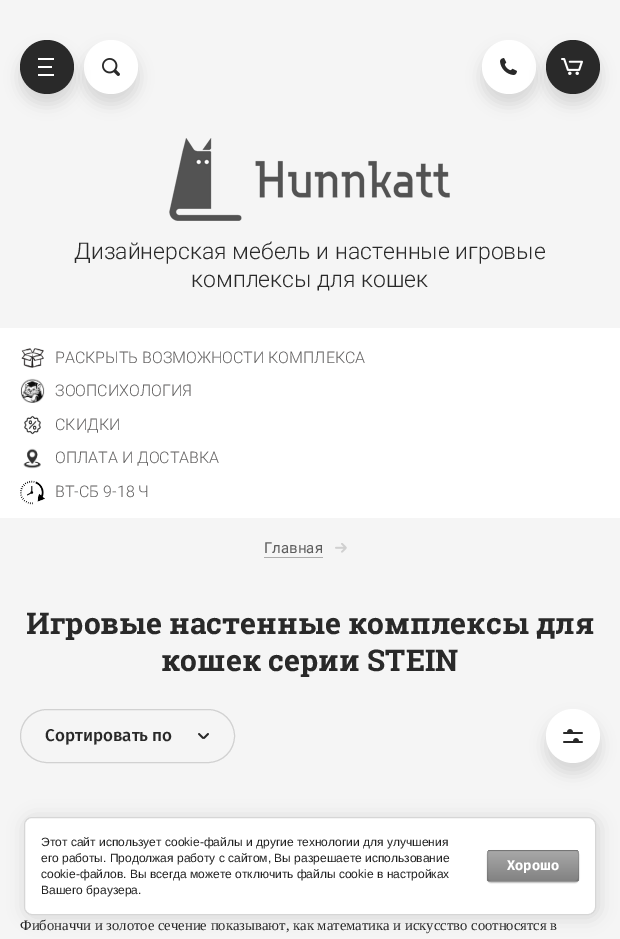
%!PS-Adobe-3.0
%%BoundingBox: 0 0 620 939
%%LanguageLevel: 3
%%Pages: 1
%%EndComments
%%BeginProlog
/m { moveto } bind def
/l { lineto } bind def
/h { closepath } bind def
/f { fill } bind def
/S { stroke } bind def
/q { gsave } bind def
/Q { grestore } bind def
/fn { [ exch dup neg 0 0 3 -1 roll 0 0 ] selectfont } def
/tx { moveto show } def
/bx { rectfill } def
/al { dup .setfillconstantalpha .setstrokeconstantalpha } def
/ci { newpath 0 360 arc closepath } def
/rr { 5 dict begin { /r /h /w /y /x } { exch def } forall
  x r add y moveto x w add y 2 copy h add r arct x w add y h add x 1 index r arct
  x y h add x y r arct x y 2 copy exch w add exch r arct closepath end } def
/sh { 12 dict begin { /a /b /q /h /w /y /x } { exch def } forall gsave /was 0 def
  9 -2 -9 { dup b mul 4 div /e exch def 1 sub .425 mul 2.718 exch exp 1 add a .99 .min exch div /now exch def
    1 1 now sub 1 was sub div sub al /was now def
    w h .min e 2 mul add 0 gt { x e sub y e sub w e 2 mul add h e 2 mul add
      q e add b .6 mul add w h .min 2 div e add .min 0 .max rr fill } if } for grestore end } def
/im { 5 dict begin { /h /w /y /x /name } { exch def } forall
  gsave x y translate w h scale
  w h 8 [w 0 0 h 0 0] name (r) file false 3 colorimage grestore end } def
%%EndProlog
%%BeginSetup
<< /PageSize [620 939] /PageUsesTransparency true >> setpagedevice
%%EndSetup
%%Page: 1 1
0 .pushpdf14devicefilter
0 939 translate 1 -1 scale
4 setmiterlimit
0.961 setgray
0 0 620 939 bx
0 setgray
84 50 54 54 27 7.5 0.13 sh
1 setgray
111 67 27 ci f
0 setgray
20 50 54 54 27 7.5 0.13 sh
0.161 setgray
47 67 27 ci f
1 setgray
38 58 16 2 bx
38 66 14 2 bx
38 74 16 2 bx
(image0.raw) 102 58 18 18 im
0 setgray
482 50 54 54 27 7.5 0.13 sh
1 setgray
509 67 27 ci f
(image1.raw) 500 58 17 17 im
0 setgray
546 50 54 54 27 7.5 0.13 sh
0.161 setgray
573 67 27 ci f
(image2.raw) 561 58 22 17 im
(image3.raw) 169 138 281 83 im
/Roboto-Light 23 fn
(Дизайнерская мебель и настенные игровые) 74 259 tx
(комплексы для кошек) 191 287 tx
1 setgray
0 328 620 190 bx
(image4.raw) 21 348 23 20 im
/Roboto-Light 16 fn
0.388 0.384 0.384 setrgbcolor
(РАСКРЫТЬ ВОЗМОЖНОСТИ КОМПЛЕКСА) 55 363 tx
(image5.raw) 20 378 25 25 im
(ЗООПСИХОЛОГИЯ) 55 396 tx
(image6.raw) 24 415 17 20 im
(СКИДКИ) 55 430 tx
(image7.raw) 23 448 18 21 im
(ОПЛАТА И ДОСТАВКА) 55 463 tx
(image8.raw) 20 480 25 25 im
(ВТ-СБ 9-18 Ч) 55 497 tx
/Roboto-Regular 15 fn
0.365 setgray
(Главная) 264 553 tx
0.675 setgray
264 557 59 1 bx
(image9.raw) 335 543 12 10 im
/RobotoSlab-Bold 30 fn
0.161 setgray
(Игровые настенные комплексы для) 26 634 tx
(кошек серии STEIN) 161 671 tx
0.82 setgray
20.5 709.5 214 53 26.5 rr S
/FiraSans-Medium 17 fn
0.161 setgray
(Сортировать по) 45 741 tx
(image10.raw) 198 733 11 6 im
0 setgray
546 719 54 54 27 7.5 0.13 sh
1 setgray
573 736 27 ci f
(image11.raw) 563 729 20 14 im
/LiberationSerif-Regular 14.65 fn
0.161 setgray
(Фибоначчи и золотое сечение показывают, как математика и искусство соотносятся в) 20 930 tx
0 setgray
26 819 572 98 8 9 0.14 sh
1 setgray
24.5 817.5 571 97 7.5 rr q f Q
0.839 setgray
S
/LiberationSans-Regular 12 fn
0.129 setgray
(Этот сайт использует cookie-файлы и другие технологии для улучшения) 41 846 tx
(его работы. Продолжая работу с сайтом, Вы разрешаете использование) 41 862 tx
(cookie-файлов. Вы всегда можете отключить файлы cookie в настройках) 41 878 tx
(Вашего браузера.) 41 894 tx
0 setgray
487 851 92 32 4 0.5 0.2 sh
q
487 850 92 32 4 rr clip newpath
q 487 850 m 579 850 l 579 851 l 487 851 l h clip newpath
<< /ShadingType 2 /ColorSpace /DeviceRGB /Coords [533 821 533 851] /Extend [true true] /Function << /FunctionType 2 /Domain [0 1] /C0 [0.659 0.659 0.659] /C1 [0.51 0.51 0.51] /N 1 >> >> shfill Q
q 487 851 m 579 851 l 579 881 l 487 881 l h clip newpath
<< /ShadingType 2 /ColorSpace /DeviceRGB /Coords [533 851 533 881] /Extend [true true] /Function << /FunctionType 2 /Domain [0 1] /C0 [0.659 0.659 0.659] /C1 [0.51 0.51 0.51] /N 1 >> >> shfill Q
q 487 881 m 579 881 l 579 882 l 487 882 l h clip newpath
<< /ShadingType 2 /ColorSpace /DeviceRGB /Coords [533 881 533 911] /Extend [true true] /Function << /FunctionType 2 /Domain [0 1] /C0 [0.659 0.659 0.659] /C1 [0.51 0.51 0.51] /N 1 >> >> shfill Q
Q
0.1 al
487.5 850.5 91 31 3.5 rr S
/FiraSans-Bold 14 fn
1 al
1 setgray
(Хорошо) 507 870 tx
.poppdf14devicefilter showpage
%%EOF
